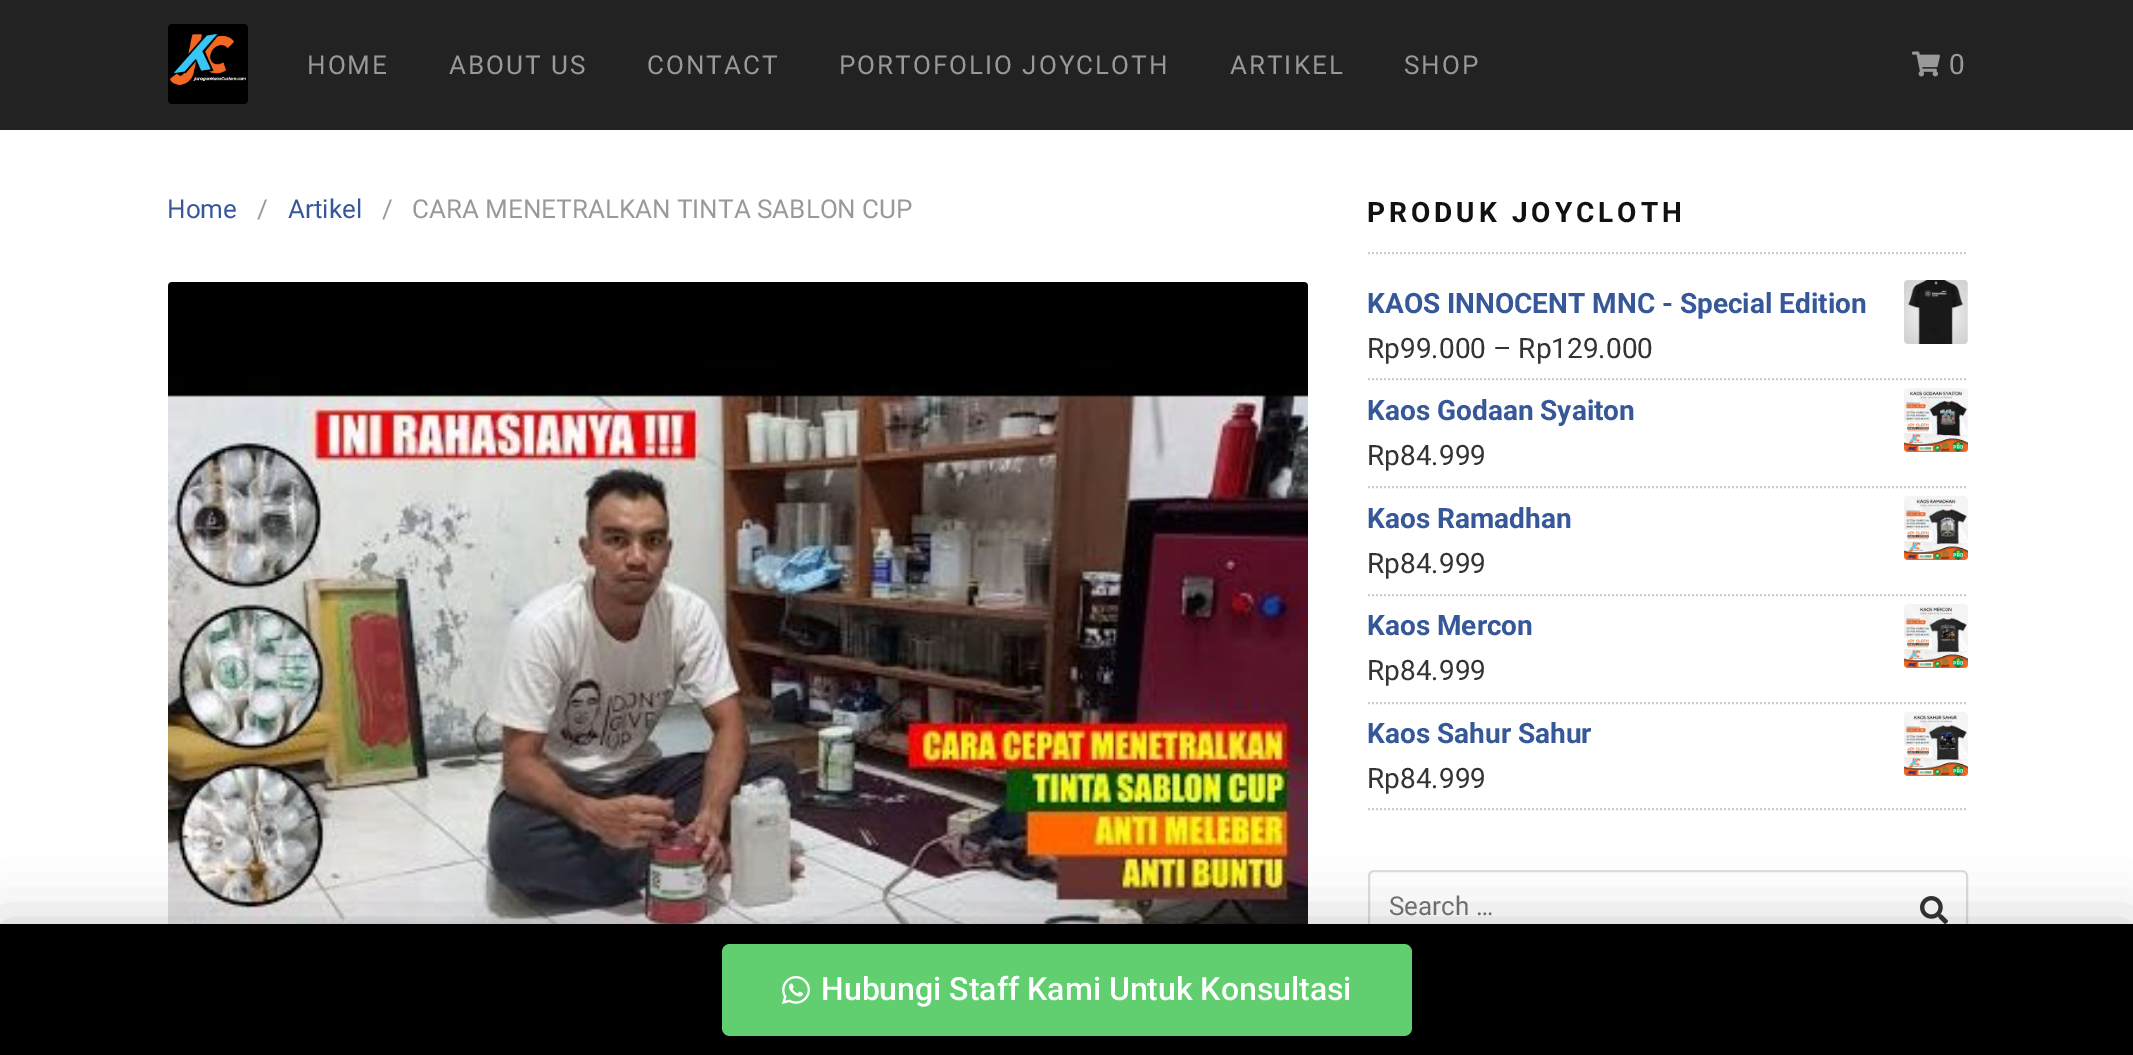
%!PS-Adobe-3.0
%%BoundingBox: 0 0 2133 1055
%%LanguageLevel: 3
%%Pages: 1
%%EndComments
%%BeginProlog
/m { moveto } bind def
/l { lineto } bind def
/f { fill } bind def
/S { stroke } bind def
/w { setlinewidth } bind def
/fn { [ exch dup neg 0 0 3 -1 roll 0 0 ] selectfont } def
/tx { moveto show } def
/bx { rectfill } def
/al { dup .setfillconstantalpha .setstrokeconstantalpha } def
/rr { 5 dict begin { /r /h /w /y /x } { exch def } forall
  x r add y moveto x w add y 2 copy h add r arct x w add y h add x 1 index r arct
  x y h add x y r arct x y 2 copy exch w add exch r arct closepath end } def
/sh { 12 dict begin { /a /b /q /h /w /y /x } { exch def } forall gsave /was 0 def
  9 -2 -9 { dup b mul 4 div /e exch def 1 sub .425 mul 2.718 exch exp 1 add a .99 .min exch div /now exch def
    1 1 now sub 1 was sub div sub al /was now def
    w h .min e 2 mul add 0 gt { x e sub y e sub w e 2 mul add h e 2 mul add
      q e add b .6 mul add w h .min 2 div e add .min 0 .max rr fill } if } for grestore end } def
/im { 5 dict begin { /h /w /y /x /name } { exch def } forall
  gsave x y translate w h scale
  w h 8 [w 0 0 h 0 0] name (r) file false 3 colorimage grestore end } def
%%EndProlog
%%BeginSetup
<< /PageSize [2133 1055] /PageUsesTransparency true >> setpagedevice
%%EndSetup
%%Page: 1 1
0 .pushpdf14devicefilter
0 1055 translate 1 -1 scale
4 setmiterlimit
1 setgray
0 0 2133 1055 bx
0.133 setgray
0 0 2133 130 bx
(image0.raw) 168 24 80 80 im
/Roboto-Regular 26 fn
0.6 setgray
307 74 m 2 0 (HOME) ashow
449 74 m 2 0 (ABOUT US) ashow
647 74 m 2 0 (CONTACT) ashow
839 74 m 2 0 (PORTOFOLIO JOYCLOTH) ashow
1230 74 m 2 0 (ARTIKEL) ashow
1404 74 m 2 0 (SHOP) ashow
(image1.raw) 1912 51 28 26 im
/Roboto-Regular 28 fn
1949 74 m 2 0 (0) ashow
/Roboto-Regular 26 fn
0.212 0.345 0.6 setrgbcolor
(Home) 167 218 tx
0.6 setgray
(/) 257 218 tx
0.212 0.345 0.6 setrgbcolor
(Artikel) 288 218 tx
0.6 setgray
(/) 382 218 tx
(CARA MENETRALKAN TINTA SABLON CUP) 412 218 tx
(image2.raw) 168 282 1140 642 im
0.8 setgray
2 w
[2 2] 0 setdash
1368 253 m 1968 253 l S
/Roboto-Bold 28 fn
0.067 setgray
1367 222 m 4 0 (PRODUK JOYCLOTH) ashow
0.8 setgray
1368 379 m 1968 379 l S
0.212 0.345 0.6 setrgbcolor
(KAOS INNOCENT MNC - Special Edition) 1367 313 tx
(image3.raw) 1904 280 64 64 im
/Roboto-Regular 28 fn
0.2 setgray
(Rp99.000 – Rp129.000) 1367 358 tx
0.8 setgray
1368 487 m 1968 487 l S
/Roboto-Bold 28 fn
0.212 0.345 0.6 setrgbcolor
(Kaos Godaan Syaiton) 1367 420 tx
(image4.raw) 1904 388 64 64 im
/Roboto-Regular 28 fn
0.2 setgray
(Rp84.999) 1367 465 tx
0.8 setgray
1368 595 m 1968 595 l S
/Roboto-Bold 28 fn
0.212 0.345 0.6 setrgbcolor
(Kaos Ramadhan) 1367 528 tx
(image5.raw) 1904 496 64 64 im
/Roboto-Regular 28 fn
0.2 setgray
(Rp84.999) 1367 573 tx
0.8 setgray
1368 703 m 1968 703 l S
/Roboto-Bold 28 fn
0.212 0.345 0.6 setrgbcolor
(Kaos Mercon) 1367 635 tx
(image6.raw) 1904 604 64 64 im
/Roboto-Regular 28 fn
0.2 setgray
(Rp84.999) 1367 680 tx
0.8 setgray
1368 809 m 1968 809 l S
/Roboto-Bold 28 fn
0.212 0.345 0.6 setrgbcolor
(Kaos Sahur Sahur) 1367 743 tx
(image7.raw) 1904 712 64 64 im
/Roboto-Regular 28 fn
0.2 setgray
(Rp84.999) 1367 788 tx
0.867 setgray
[] 0 setdash
1369 871 598 72 5 rr S
/Roboto-Regular 26 fn
0.459 setgray
(Search …) 1389 915 tx
(image8.raw) 1920 896 28 28 im
0 setgray
0 924 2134 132 0 30 0.2 sh
0 924 2133 131 bx
0.38 0.808 0.439 setrgbcolor
722 944 690 92 8 rr f
(image9.raw) 782 976 28 28 im
/Roboto-Medium 32 fn
1 setgray
(Hubungi Staff Kami Untuk Konsultasi) 821 1000 tx
.poppdf14devicefilter showpage
%%EOF
